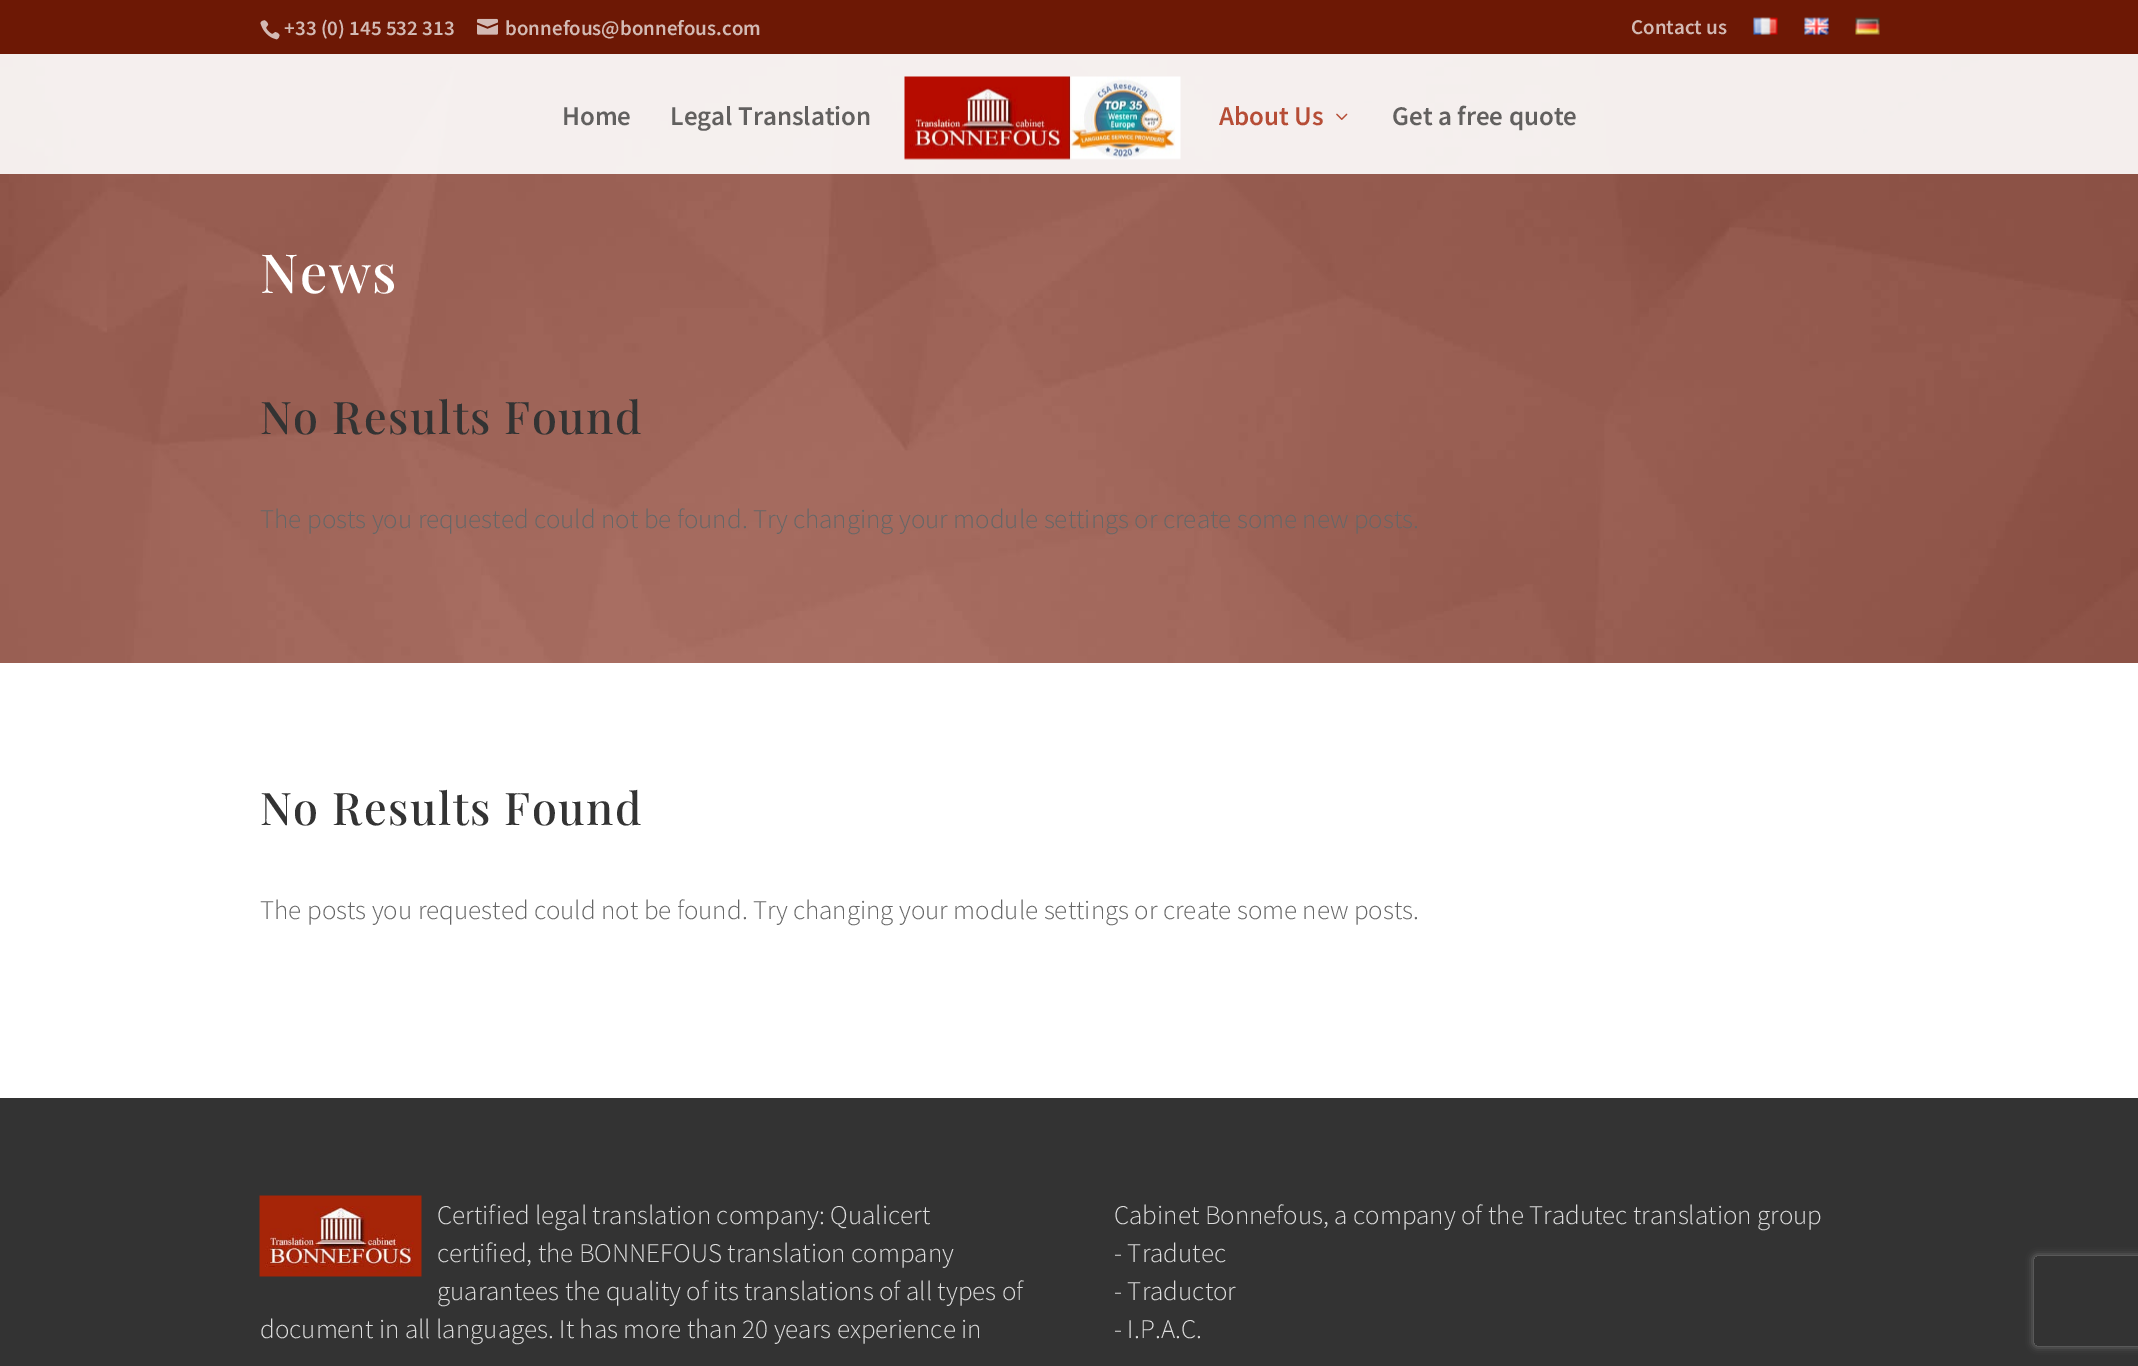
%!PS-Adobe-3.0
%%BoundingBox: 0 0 2138 1366
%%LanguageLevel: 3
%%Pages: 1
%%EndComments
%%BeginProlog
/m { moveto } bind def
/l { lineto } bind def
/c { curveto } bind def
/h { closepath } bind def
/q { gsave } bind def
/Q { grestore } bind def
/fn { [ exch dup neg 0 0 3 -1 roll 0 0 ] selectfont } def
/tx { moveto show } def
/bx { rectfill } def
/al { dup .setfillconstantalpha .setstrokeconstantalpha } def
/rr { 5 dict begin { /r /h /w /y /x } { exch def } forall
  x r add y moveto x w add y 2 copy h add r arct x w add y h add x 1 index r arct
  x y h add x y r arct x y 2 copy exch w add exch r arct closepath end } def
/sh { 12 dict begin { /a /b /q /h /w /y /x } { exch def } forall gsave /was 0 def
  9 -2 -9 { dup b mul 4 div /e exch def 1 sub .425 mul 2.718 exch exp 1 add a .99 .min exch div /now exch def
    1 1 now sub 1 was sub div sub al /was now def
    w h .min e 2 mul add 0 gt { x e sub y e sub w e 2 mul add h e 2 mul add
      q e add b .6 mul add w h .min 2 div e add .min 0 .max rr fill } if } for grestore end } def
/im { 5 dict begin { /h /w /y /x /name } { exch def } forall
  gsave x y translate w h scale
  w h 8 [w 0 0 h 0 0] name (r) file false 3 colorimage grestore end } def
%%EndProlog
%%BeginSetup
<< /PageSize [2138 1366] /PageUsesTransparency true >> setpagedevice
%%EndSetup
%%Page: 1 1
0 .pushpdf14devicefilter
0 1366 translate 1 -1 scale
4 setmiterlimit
1 setgray
0 0 2138 1366 bx
0.427 0.094 0.02 setrgbcolor
0 0 2138 54 bx
(image0.raw) 260 20 20 20 im
/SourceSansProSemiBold-SemiBold 21 fn
0.827 0.729 0.706 setrgbcolor
(+33 \(0\) 145 532 313) 284 35 tx
(image1.raw) 477 18 21 17 im
(bonnefous@bonnefous.com) 505 35 tx
(Contact us) 1631 34 tx
(image2.raw) 1753 17 25 18 im
(image3.raw) 1804 17 25 18 im
(image4.raw) 1855 17 25 18 im
(image7.raw) 0 54 2138 609 im
0.9 al
1 setgray
0 54 2138 120 bx
/SourceSansProSemiBold-SemiBold 27 fn
1 al
0.384 0.376 0.373 setrgbcolor
(Home) 562 125 tx
(Legal Translation) 670 125 tx
(image5.raw) 904 76 277 84 im
0.714 0.302 0.212 setrgbcolor
(About Us) 1219 125 tx
(image6.raw) 1336 113 12 7 im
0.384 0.376 0.373 setrgbcolor
(Get a free quote) 1392 125 tx
/PlayfairDisplay-Medium 54 fn
1 setgray
260 293 m 1.5 0 (News) ashow
/PlayfairDisplay-Medium 45 fn
0.2 setgray
260 434 m 1.5 0 (No Results Found) ashow
/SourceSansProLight-Light 27 fn
0.4 setgray
(The posts you requested could not be found. Try changing your module settings or create some new posts.) 260 528 tx
/PlayfairDisplay-Medium 45 fn
0.2 setgray
260 825 m 1.5 0 (No Results Found) ashow
/SourceSansProLight-Light 27 fn
0.4 setgray
(The posts you requested could not be found. Try changing your module settings or create some new posts.) 260 919 tx
0.2 setgray
0 1098 2138 268 bx
(image8.raw) 259 1195 163 82 im
0.867 setgray
(Certified legal translation company: Qualicert) 437 1224 tx
(certified, the BONNEFOUS translation company) 437 1262 tx
(guarantees the quality of its translations of all types of) 437 1300 tx
(document in all languages. It has more than 20 years experience in) 260 1338 tx
(Cabinet Bonnefous, a company of the Tradutec translation group) 1114 1224 tx
(- Tradutec) 1114 1262 tx
(- Traductor) 1114 1300 tx
(- I.P.A.C.) 1114 1338 tx
q
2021 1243 m 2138 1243 l 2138 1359 l 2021 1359 l h 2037 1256 m 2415 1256 l 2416.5 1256 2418 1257.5 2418 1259 c 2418 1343 l 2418 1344.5 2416.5 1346 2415 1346 c 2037 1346 l 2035.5 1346 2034 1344.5 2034 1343 c 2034 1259 l 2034 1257.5 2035.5 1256 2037 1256 c h eoclip newpath
0.502 setgray
2034 1256 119 90 3 4 1 sh
Q
.poppdf14devicefilter showpage
%%EOF
